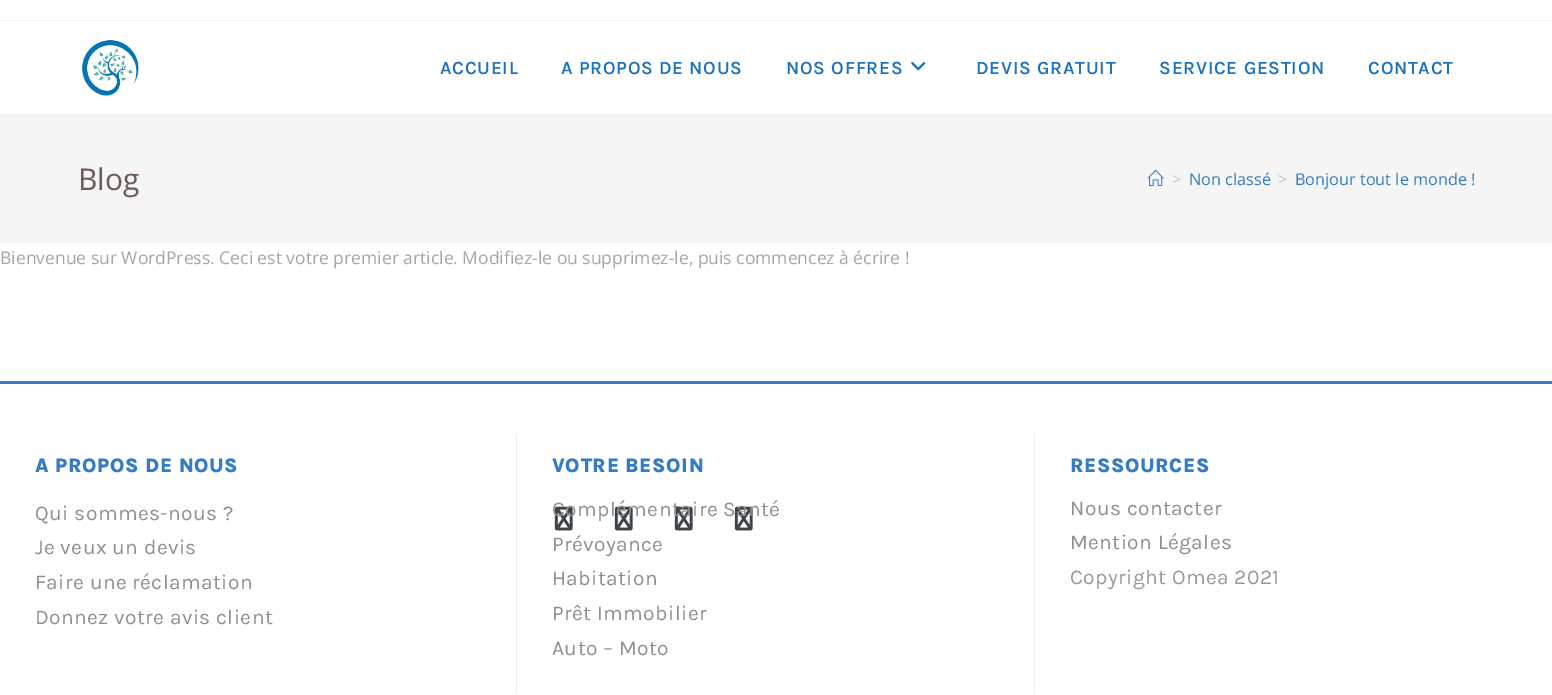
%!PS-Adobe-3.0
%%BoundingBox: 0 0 1552 695
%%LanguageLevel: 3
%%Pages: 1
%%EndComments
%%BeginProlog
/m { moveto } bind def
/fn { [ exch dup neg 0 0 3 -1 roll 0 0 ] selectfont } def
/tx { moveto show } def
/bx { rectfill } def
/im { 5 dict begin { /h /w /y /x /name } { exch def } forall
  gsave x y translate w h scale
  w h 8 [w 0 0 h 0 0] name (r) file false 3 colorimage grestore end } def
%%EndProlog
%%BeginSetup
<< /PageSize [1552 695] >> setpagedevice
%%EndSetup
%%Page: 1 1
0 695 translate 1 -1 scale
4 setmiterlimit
1 setgray
0 0 1552 695 bx
0.945 setgray
0 20 1552 1 bx
0 114 1552 1 bx
(image0.raw) 82 39 58 57 im
/Karla-SemiBold 18.75 fn
0.118 0.451 0.745 setrgbcolor
440 74 m 0.75 0 (ACCUEIL) ashow
561 74 m 0.75 0 (A PROPOS DE NOUS) ashow
786 74 m 0.75 0 (NOS OFFRES) ashow
(image1.raw) 911 62 15 9 im
976 74 m 0.75 0 (DEVIS GRATUIT) ashow
1159 74 m 0.75 0 (SERVICE GESTION) ashow
1368 74 m 0.75 0 (CONTACT) ashow
0.961 setgray
0 115 1552 128 bx
/OpenSans-Regular 30 fn
0.435 0.353 0.353 setrgbcolor
(Blog) 78 190 tx
(image2.raw) 1148 169 16 17 im
/OpenSans-Regular 16.25 fn
0.776 setgray
(>) 1172 185 tx
0.204 0.49 0.769 setrgbcolor
(Non classé) 1189 185 tx
0.776 setgray
(>) 1278 185 tx
0.204 0.49 0.769 setrgbcolor
(Bonjour tout le monde !) 1295 185 tx
/OpenSans-Regular 17.5 fn
0.643 0.655 0.639 setrgbcolor
(Bienvenue sur WordPress. Ceci est votre premier article. Modifiez-le ou supprimez-le, puis commencez à écrire !) 0 264 tx
0.208 0.494 0.773 setrgbcolor
0 381 1552 3 bx
0.933 setgray
516 434 1 260 bx
/Karla-ExtraBold 20 fn
0.204 0.49 0.769 setrgbcolor
35 472 m 0.6 0 (A PROPOS DE NOUS) ashow
/Karla-Regular 21 fn
0.565 0.565 0.573 setrgbcolor
35 520 m 0.4 0 (Qui sommes-nous ?) ashow
35 554 m 0.4 0 (Je veux un devis) ashow
35 589 m 0.4 0 (Faire une réclamation) ashow
35 624 m 0.4 0 (Donnez votre avis client) ashow
0.933 setgray
1034 434 1 260 bx
/Karla-ExtraBold 20 fn
0.204 0.49 0.769 setrgbcolor
552 472 m 0.6 0 (VOTRE BESOIN) ashow
(image3.raw) 554 506 19 25 im
(image3.raw) 614 506 19 25 im
(image3.raw) 674 506 19 25 im
(image3.raw) 734 506 19 25 im
/Karla-Regular 21 fn
0.565 0.565 0.573 setrgbcolor
552 516 m 0.4 0 (Complémentaire Santé) ashow
552 551 m 0.4 0 (Prévoyance) ashow
552 585 m 0.4 0 (Habitation) ashow
552 620 m 0.4 0 (Prêt Immobilier) ashow
552 655 m 0.4 0 (Auto – Moto) ashow
/Karla-ExtraBold 20 fn
0.204 0.49 0.769 setrgbcolor
1070 472 m 0.6 0 (RESSOURCES) ashow
/Karla-Regular 21 fn
0.565 0.565 0.573 setrgbcolor
1070 515 m 0.4 0 (Nous contacter) ashow
1070 549 m 0.4 0 (Mention Légales) ashow
0.6 setgray
1070 584 m 0.4 0 (Copyright Omea 2021) ashow
showpage
%%EOF
